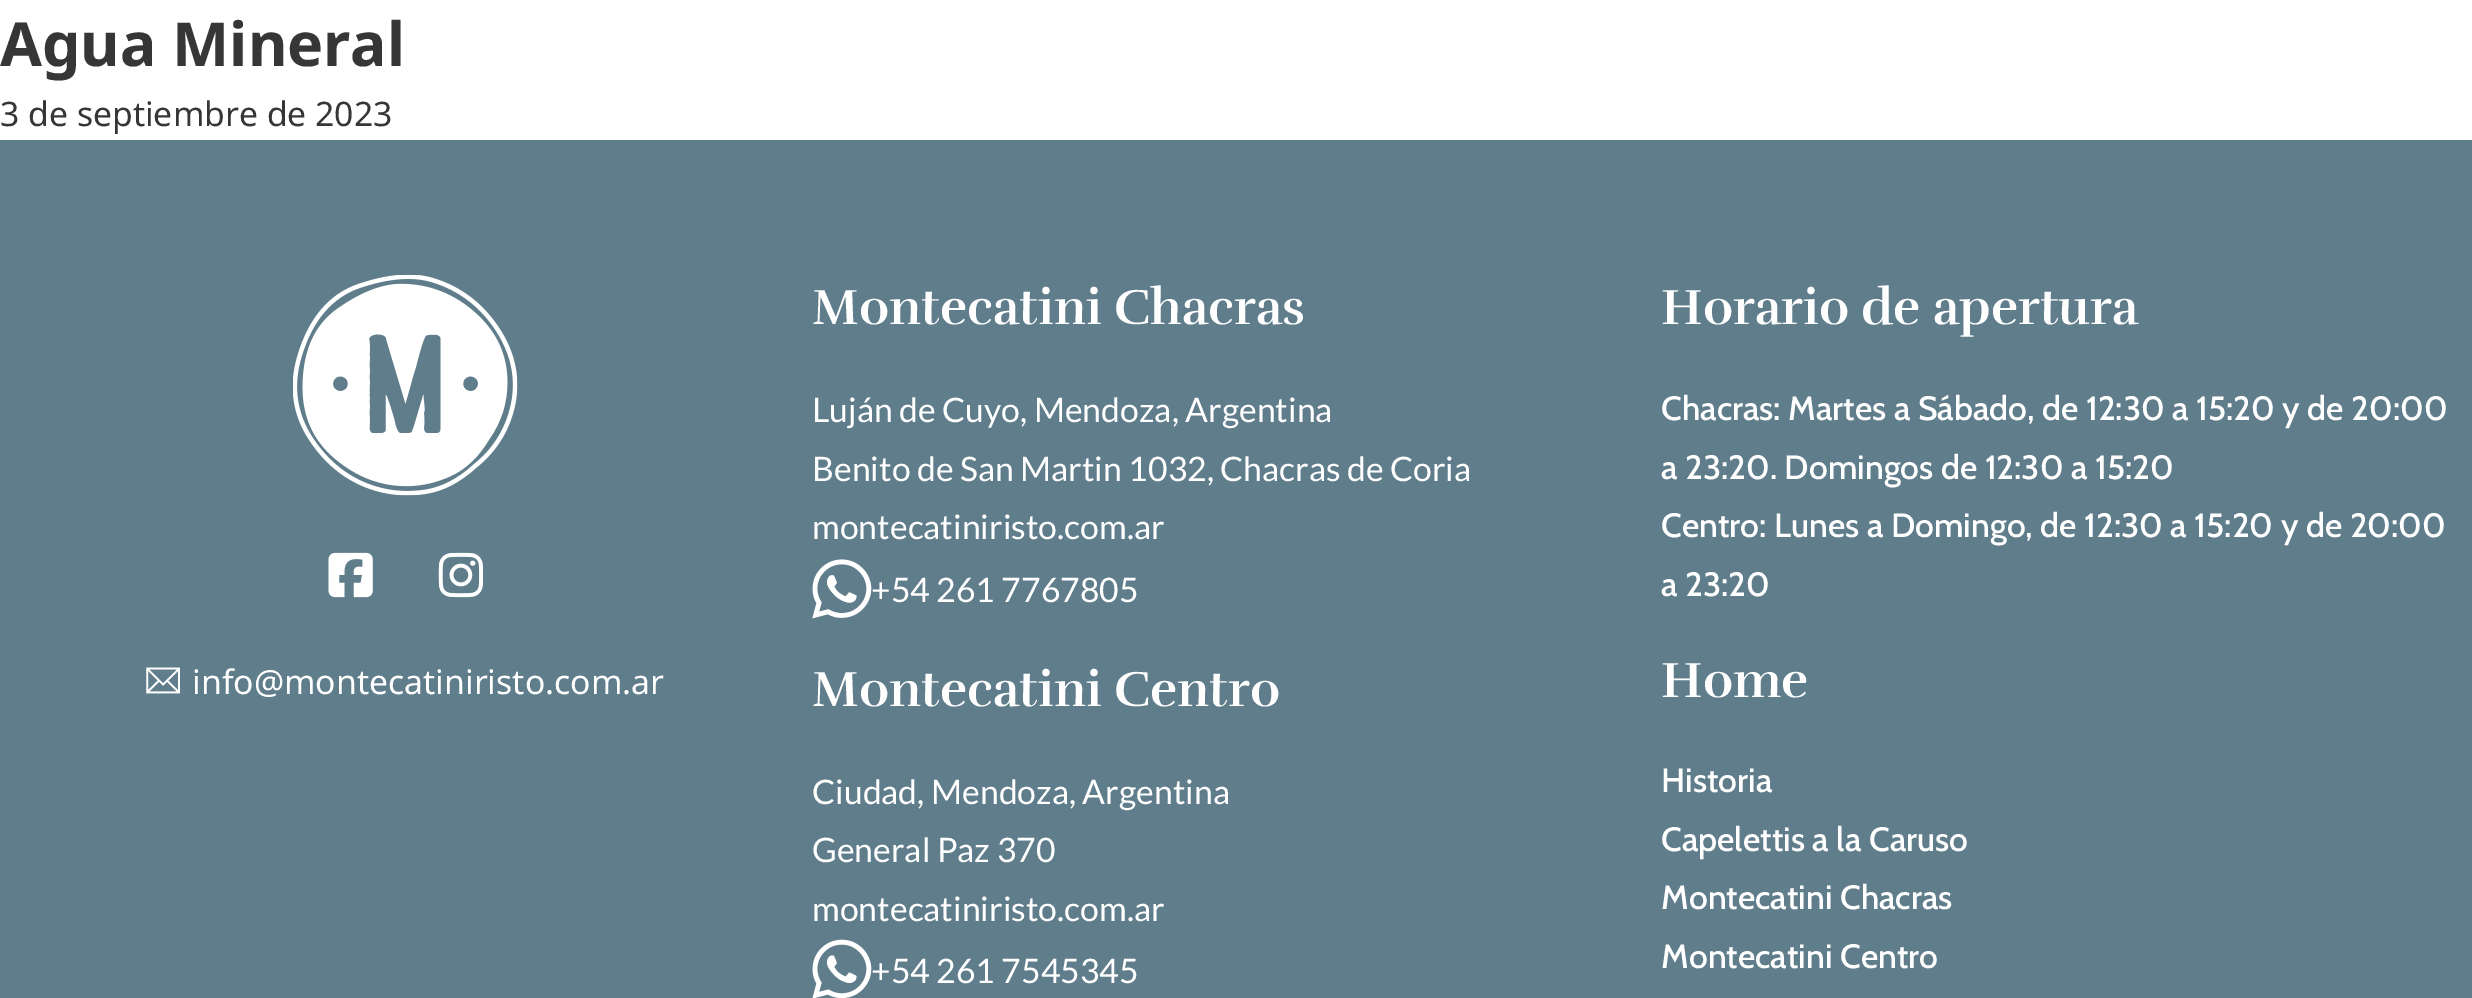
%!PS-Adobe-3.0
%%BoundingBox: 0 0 2472 998
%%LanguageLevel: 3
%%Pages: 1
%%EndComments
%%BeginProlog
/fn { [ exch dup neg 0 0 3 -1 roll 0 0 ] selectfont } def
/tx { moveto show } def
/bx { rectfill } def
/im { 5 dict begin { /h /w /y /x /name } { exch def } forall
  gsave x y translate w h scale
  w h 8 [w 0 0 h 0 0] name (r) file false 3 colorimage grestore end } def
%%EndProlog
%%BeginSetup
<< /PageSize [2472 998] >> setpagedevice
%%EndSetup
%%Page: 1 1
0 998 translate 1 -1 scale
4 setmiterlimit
1 setgray
0 0 2472 998 bx
/NotoSans-Bold 60.75 fn
0.212 setgray
(Agua Mineral) 0 66 tx
/NotoSans-Regular 33.75 fn
(3 de septiembre de 2023) 0 126 tx
0.376 0.49 0.545 setrgbcolor
0 140 2472 858 bx
(image0.raw) 293 275 225 221 im
(image1.raw) 328 552 45 46 im
(image2.raw) 438 552 46 46 im
(image3.raw) 146 667 34 27 im
1 setgray
(info@montecatiniristo.com.ar) 192 694 tx
/Rufina-Bold 50.6 fn
(Montecatini Chacras) 812 324 tx
/Lato-Regular 33.75 fn
(Luján de Cuyo, Mendoza, Argentina) 812 422 tx
(Benito de San Martin 1032, Chacras de Coria) 812 481 tx
(montecatiniristo.com.ar) 812 539 tx
(image4.raw) 812 559 60 60 im
(+54 261 7767805) 871 602 tx
/Rufina-Bold 50.6 fn
(Montecatini Centro) 812 706 tx
/Lato-Regular 33.75 fn
(Ciudad, Mendoza, Argentina) 812 804 tx
(General Paz 370) 812 862 tx
(montecatiniristo.com.ar) 812 921 tx
(image5.raw) 812 939 60 59 im
(+54 261 7545345) 871 983 tx
/Rufina-Bold 50.6 fn
(Horario de apertura) 1661 324 tx
/Cabin-Medium 33.75 fn
(Chacras: Martes a Sábado, de 12:30 a 15:20 y de 20:00) 1661 420 tx
(a 23:20. Domingos de 12:30 a 15:20) 1661 479 tx
(Centro: Lunes a Domingo, de 12:30 a 15:20 y de 20:00) 1661 537 tx
(a 23:20) 1661 596 tx
/Rufina-Bold 50.6 fn
(Home) 1661 697 tx
/Cabin-Medium 33.75 fn
(Historia) 1661 792 tx
(Capelettis a la Caruso) 1661 851 tx
(Montecatini Chacras) 1661 909 tx
(Montecatini Centro) 1661 968 tx
showpage
%%EOF
